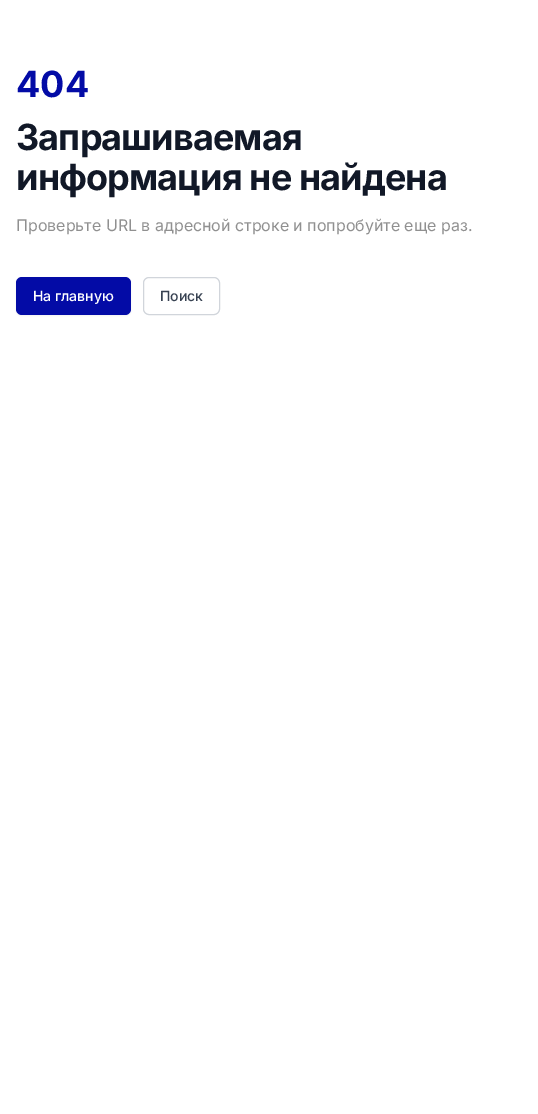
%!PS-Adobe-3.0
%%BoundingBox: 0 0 538 1114
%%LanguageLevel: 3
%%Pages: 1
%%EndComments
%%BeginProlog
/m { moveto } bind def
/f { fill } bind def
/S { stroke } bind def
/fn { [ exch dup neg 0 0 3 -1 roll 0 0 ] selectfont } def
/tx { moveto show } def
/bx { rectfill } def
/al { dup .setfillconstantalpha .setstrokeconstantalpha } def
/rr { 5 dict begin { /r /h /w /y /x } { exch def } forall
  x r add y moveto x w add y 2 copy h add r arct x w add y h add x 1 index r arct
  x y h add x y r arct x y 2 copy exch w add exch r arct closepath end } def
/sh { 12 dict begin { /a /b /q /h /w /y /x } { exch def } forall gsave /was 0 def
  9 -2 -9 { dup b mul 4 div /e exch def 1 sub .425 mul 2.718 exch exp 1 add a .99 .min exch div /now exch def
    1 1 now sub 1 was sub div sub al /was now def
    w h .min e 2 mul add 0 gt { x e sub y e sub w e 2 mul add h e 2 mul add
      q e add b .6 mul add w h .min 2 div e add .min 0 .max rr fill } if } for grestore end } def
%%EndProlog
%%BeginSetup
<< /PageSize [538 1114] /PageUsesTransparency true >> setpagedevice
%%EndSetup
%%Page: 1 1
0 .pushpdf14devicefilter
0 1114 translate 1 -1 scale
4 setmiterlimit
1 setgray
0 0 538 1114 bx
/Inter-Bold 36 fn
0.012 0.043 0.651 setrgbcolor
(404) 16 97 tx
0.067 0.094 0.153 setrgbcolor
16 150 m -0.9 0 (Запрашиваемая) ashow
16 190 m -0.9 0 (информация не найдена) ashow
/Inter-Regular 16 fn
0.565 setgray
(Проверьте URL в адресной строке и попробуйте еще раз.) 16 231 tx
0 setgray
16 278 115 38 6 1 0.05 sh
0.012 0.043 0.651 setrgbcolor
16 277 115 38 6 rr f
/Inter-Medium 14 fn
1 setgray
(На главную) 33 301 tx
0.82 0.835 0.859 setrgbcolor
143.5 277.5 76 37 5.5 rr S
0.216 0.255 0.318 setrgbcolor
(Поиск) 160 301 tx
.poppdf14devicefilter showpage
%%EOF
